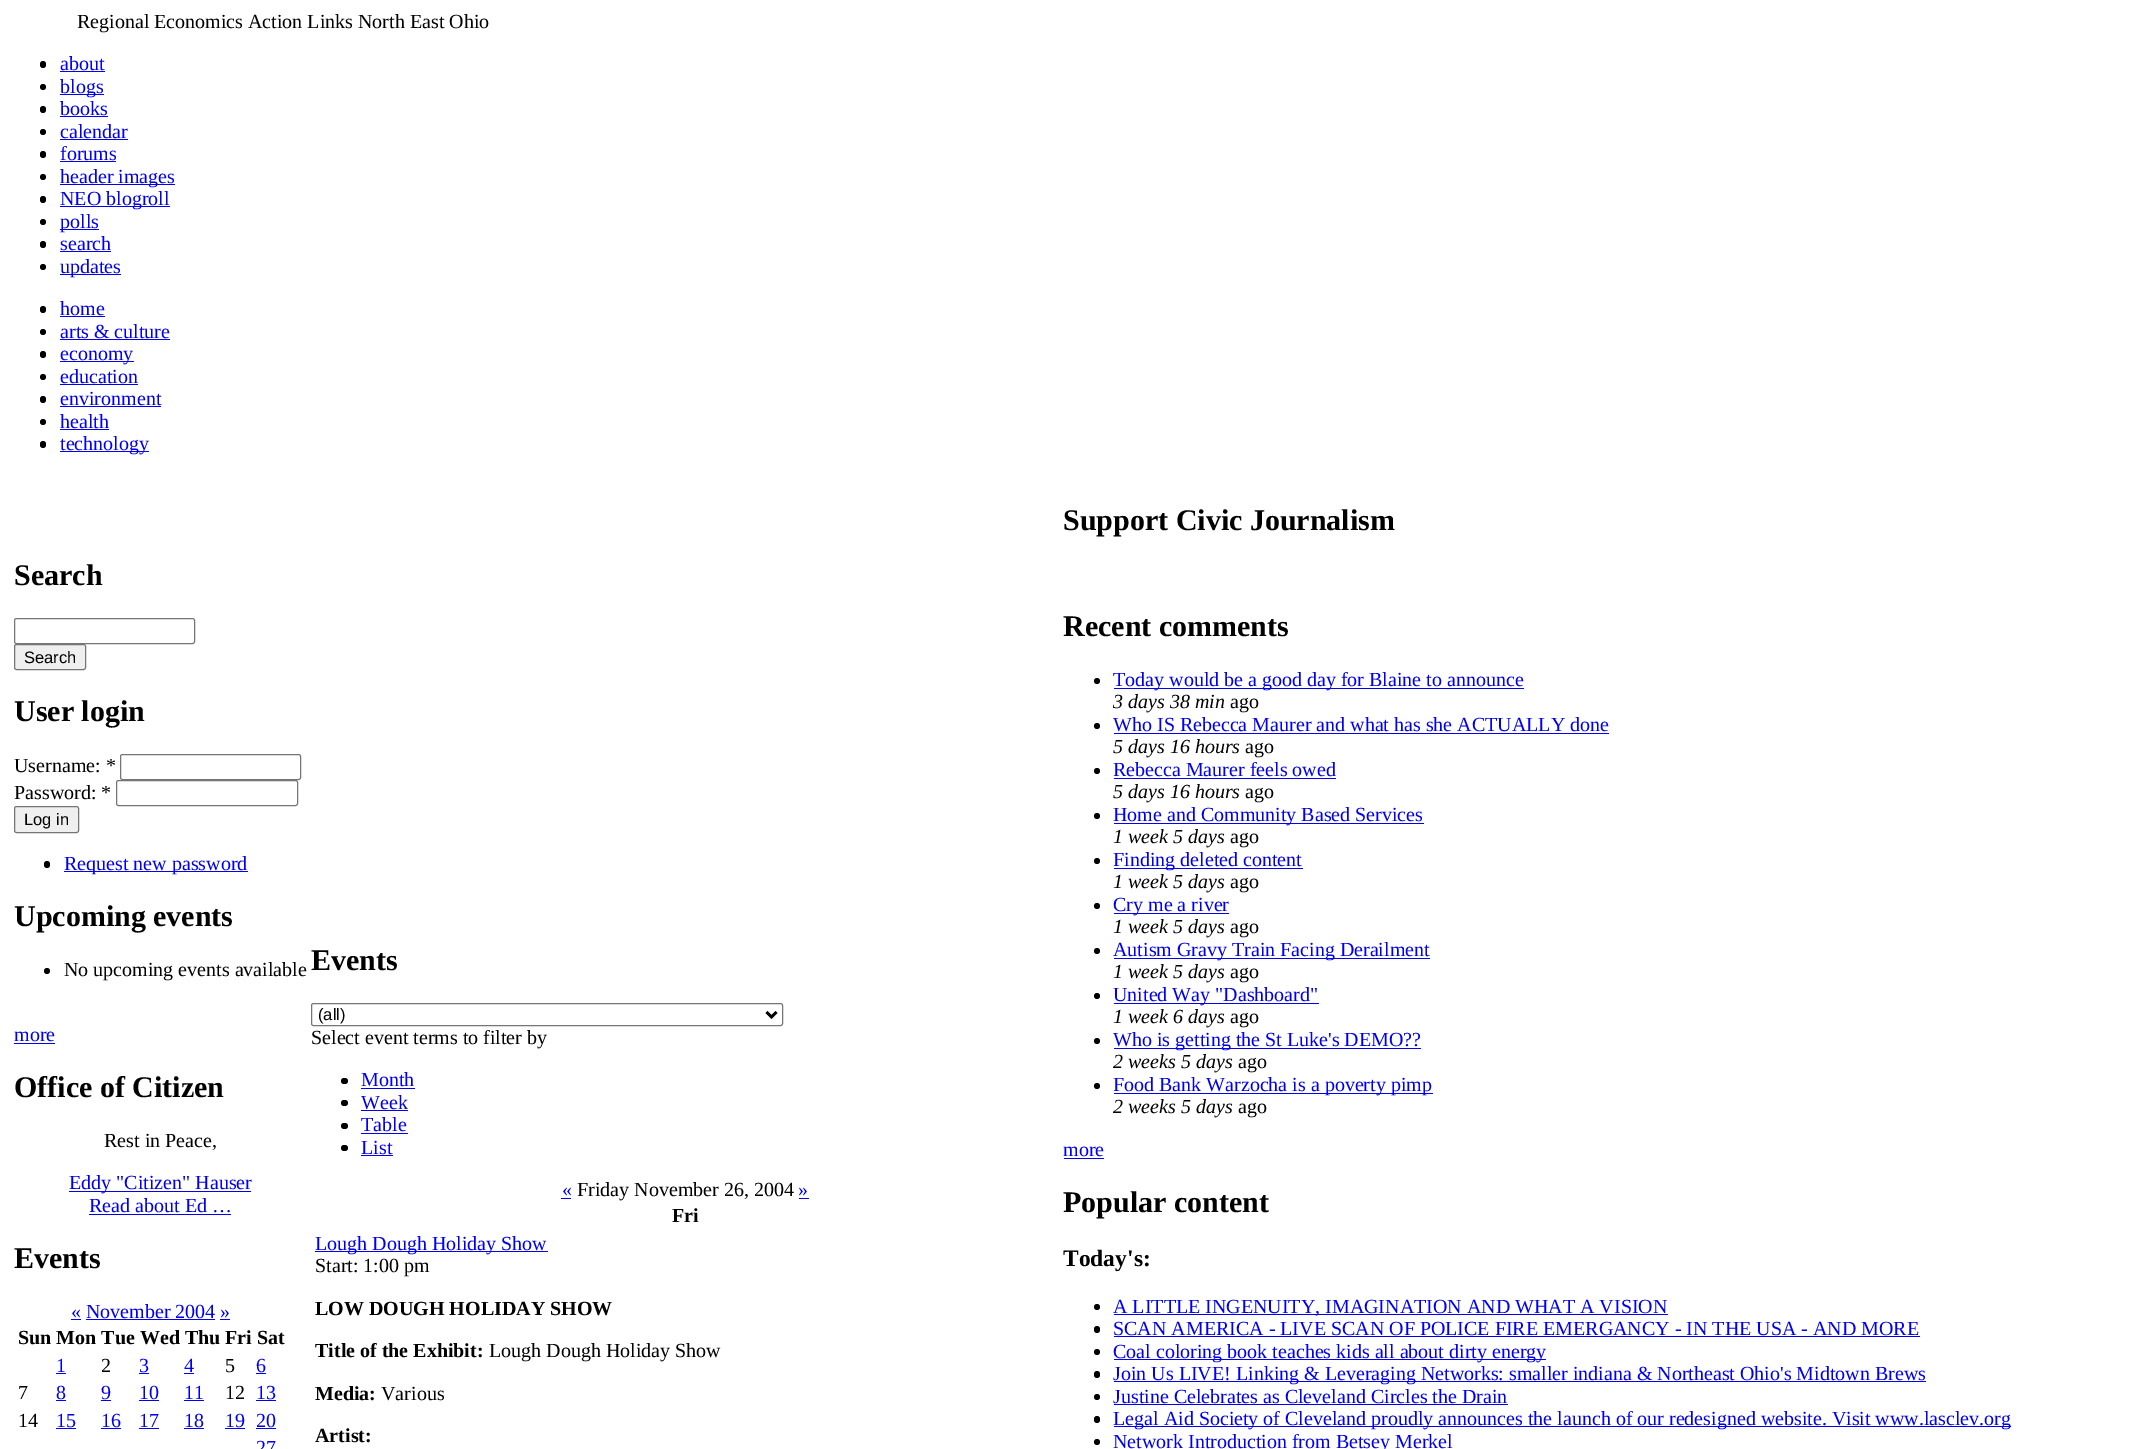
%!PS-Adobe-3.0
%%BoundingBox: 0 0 2148 1449
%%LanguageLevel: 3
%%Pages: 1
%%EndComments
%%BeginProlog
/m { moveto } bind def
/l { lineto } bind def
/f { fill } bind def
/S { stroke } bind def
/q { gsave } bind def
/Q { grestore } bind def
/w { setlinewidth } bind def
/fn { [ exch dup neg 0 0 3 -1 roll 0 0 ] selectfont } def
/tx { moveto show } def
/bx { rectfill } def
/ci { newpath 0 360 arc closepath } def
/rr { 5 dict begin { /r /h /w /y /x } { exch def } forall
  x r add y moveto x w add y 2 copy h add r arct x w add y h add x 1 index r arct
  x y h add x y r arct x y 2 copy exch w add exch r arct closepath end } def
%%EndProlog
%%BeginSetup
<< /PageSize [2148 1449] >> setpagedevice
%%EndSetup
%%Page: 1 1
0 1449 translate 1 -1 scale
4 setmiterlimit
1 setgray
0 0 2148 1449 bx
/LiberationSerif-Regular 20 fn
0 setgray
(Regional Economics Action Links North East Ohio) 77 28 tx
40 61 6 7 3 rr f
0 0 0.933 setrgbcolor
(about) 60 70 tx
60 71 45 1 bx
0 setgray
43 87 3 ci f
0 0 0.933 setrgbcolor
60 94 44 1 bx
(blogs) 60 93 tx
0 setgray
40 106 6 7 3 rr f
0 0 0.933 setrgbcolor
(books) 60 115 tx
60 116 48 1 bx
0 setgray
43 132 3 ci f
0 0 0.933 setrgbcolor
(calendar) 60 138 tx
60 139 68 1 bx
0 setgray
40 151 6 7 3 rr f
0 0 0.933 setrgbcolor
(forums) 60 160 tx
60 161 56 1 bx
0 setgray
43 177 3 ci f
0 0 0.933 setrgbcolor
60 184 115 1 bx
(header images) 60 183 tx
0 setgray
40 196 6 7 3 rr f
0 0 0.933 setrgbcolor
60 206 110 1 bx
(NEO blogroll) 60 205 tx
0 setgray
43 222 3 ci f
0 0 0.933 setrgbcolor
60 229 39 1 bx
(polls) 60 228 tx
0 setgray
40 241 6 7 3 rr f
0 0 0.933 setrgbcolor
(search) 60 250 tx
60 251 51 1 bx
0 setgray
43 267 3 ci f
0 0 0.933 setrgbcolor
60 274 61 1 bx
(updates) 60 273 tx
0 setgray
40 306 6 7 3 rr f
0 0 0.933 setrgbcolor
(home) 60 315 tx
60 316 45 1 bx
0 setgray
43 332 3 ci f
0 0 0.933 setrgbcolor
(arts & culture) 60 338 tx
60 339 110 1 bx
0 setgray
40 351 6 7 3 rr f
0 0 0.933 setrgbcolor
60 361 74 1 bx
(economy) 60 360 tx
0 setgray
43 377 3 ci f
0 0 0.933 setrgbcolor
(education) 60 383 tx
60 384 78 1 bx
0 setgray
40 396 6 7 3 rr f
0 0 0.933 setrgbcolor
(environment) 60 405 tx
60 406 101 1 bx
0 setgray
43 422 3 ci f
0 0 0.933 setrgbcolor
(health) 60 428 tx
60 429 49 1 bx
0 setgray
40 441 6 7 3 rr f
0 0 0.933 setrgbcolor
60 451 89 1 bx
(technology) 60 450 tx
/LiberationSerif-Bold 30 fn
0 setgray
(Search) 14 585 tx
0.463 setgray
14.5 618.5 180 25 2 rr S
0.937 setgray
14.5 644.5 71 25 2 rr q f Q
0.463 setgray
S
/LiberationSans-Regular 16.5 fn
0 setgray
(Search) 24 663 tx
/LiberationSerif-Bold 30 fn
(User login) 14 721 tx
/LiberationSerif-Regular 20 fn
(Username: *) 14 772 tx
0.463 setgray
120.5 754.5 180 25 2 rr S
0 setgray
(Password: *) 14 799 tx
0.463 setgray
116.5 780.5 181 25 2 rr S
0.937 setgray
14.5 806.5 64 26 2 rr q f Q
0.463 setgray
S
/LiberationSans-Regular 16.5 fn
0 setgray
(Log in) 24 825 tx
44 861 6 7 3 rr f
0 0 0.933 setrgbcolor
64 871 184 1 bx
/LiberationSerif-Regular 20 fn
(Request new password) 64 870 tx
/LiberationSerif-Bold 30 fn
0 setgray
(Upcoming events) 14 926 tx
47 971 3 ci f
/LiberationSerif-Regular 20 fn
(No upcoming events available) 64 976 tx
0 0 0.933 setrgbcolor
(more) 14 1041 tx
14 1043 41 1 bx
/LiberationSerif-Bold 30 fn
0 setgray
(Office of Citizen) 14 1097 tx
/LiberationSerif-Regular 20 fn
(Rest in Peace,) 104 1147 tx
0 0 0.933 setrgbcolor
69 1191 182 1 bx
(Eddy "Citizen" Hauser) 69 1189 tx
(Read about Ed …) 89 1212 tx
89 1214 142 1 bx
/LiberationSerif-Bold 30 fn
0 setgray
(Events) 14 1268 tx
/LiberationSerif-Regular 20 fn
0 0 0.933 setrgbcolor
(« November 2004 ») 71 1318 tx
71 1319 10 1 bx
86 1319 129 1 bx
220 1319 10 1 bx
/LiberationSerif-Bold 20 fn
0 setgray
(Sun Mon Tue Wed Thu Fri Sat) 18 1344 tx
/LiberationSerif-Regular 20 fn
0 0 0.933 setrgbcolor
(1) 56 1372 tx
56 1373 10 1 bx
0 setgray
(2) 101 1372 tx
0 0 0.933 setrgbcolor
(3) 139 1372 tx
139 1373 10 1 bx
(4) 184 1372 tx
184 1373 10 1 bx
0 setgray
(5) 225 1372 tx
0 0 0.933 setrgbcolor
(6) 256 1372 tx
256 1373 10 1 bx
0 setgray
(7) 18 1399 tx
0 0 0.933 setrgbcolor
(8) 56 1399 tx
56 1400 10 1 bx
(9) 101 1399 tx
101 1400 10 1 bx
(10) 139 1399 tx
139 1400 20 1 bx
(11) 184 1399 tx
184 1400 20 1 bx
0 setgray
(12) 225 1399 tx
0 0 0.933 setrgbcolor
(13) 256 1399 tx
256 1400 20 1 bx
0 setgray
(14) 18 1427 tx
0 0 0.933 setrgbcolor
(15) 56 1427 tx
56 1428 20 1 bx
(16) 101 1427 tx
101 1428 20 1 bx
(17) 139 1427 tx
139 1428 20 1 bx
(18) 184 1427 tx
184 1428 20 1 bx
(19) 225 1427 tx
225 1428 20 1 bx
(20) 256 1427 tx
256 1428 20 1 bx
(27) 256 1454 tx
/LiberationSerif-Bold 30 fn
0 setgray
(Events) 311 970 tx
0.463 setgray
311.5 1003.5 471 22 2 rr S
0 setgray
2.5 w
766.5 1012 m 771.5 1017 l 776.5 1012 l S
/LiberationSans-Regular 16.5 fn
(\(all\)) 318 1020 tx
/LiberationSerif-Regular 20 fn
(Select event terms to filter by) 311 1044 tx
341 1078 7 6 3 rr f
0 0 0.933 setrgbcolor
(Month) 361 1086 tx
361 1088 54 1 bx
0 setgray
341 1100 7 6 3 rr f
0 0 0.933 setrgbcolor
(Week) 361 1109 tx
361 1110 47 1 bx
0 setgray
341 1123 7 6 3 rr f
0 0 0.933 setrgbcolor
(Table) 361 1131 tx
361 1133 47 1 bx
0 setgray
341 1145 7 6 3 rr f
0 0 0.933 setrgbcolor
(List) 361 1154 tx
361 1155 32 1 bx
(«) 562 1196 tx
561 1198 10 1 bx
0 setgray
(Friday November 26, 2004) 577 1196 tx
0 0 0.933 setrgbcolor
(») 798 1196 tx
799 1198 10 1 bx
/LiberationSerif-Bold 20 fn
0 setgray
(Fri) 672 1222 tx
0 0 0.933 setrgbcolor
315 1251 233 1 bx
/LiberationSerif-Regular 20 fn
(Lough Dough Holiday Show) 315 1250 tx
0 setgray
(Start: 1:00 pm) 315 1272 tx
/LiberationSerif-Bold 20 fn
(LOW DOUGH HOLIDAY SHOW) 315 1315 tx
(Title of the Exhibit:) 315 1357 tx
/LiberationSerif-Regular 20 fn
(Lough Dough Holiday Show) 489 1357 tx
/LiberationSerif-Bold 20 fn
(Media:) 315 1400 tx
/LiberationSerif-Regular 20 fn
(Various) 381 1400 tx
/LiberationSerif-Bold 20 fn
(Artist:) 315 1442 tx
/LiberationSerif-Bold 30 fn
(Support Civic Journalism) 1063 530 tx
(Recent comments) 1063 636 tx
1097 681 3 ci f
0 0 0.933 setrgbcolor
1114 688 410 1 bx
/LiberationSerif-Regular 20 fn
(Today would be a good day for Blaine to announce) 1113 686 tx
/LiberationSerif-Italic 20 fn
0 setgray
(3 days 38 min) 1113 708 tx
/LiberationSerif-Regular 20 fn
(ago) 1230 708 tx
1097 726 3 ci f
0 0 0.933 setrgbcolor
(Who IS Rebecca Maurer and what has she ACTUALLY done) 1113 731 tx
1114 733 495 1 bx
/LiberationSerif-Italic 20 fn
0 setgray
(5 days 16 hours) 1113 753 tx
/LiberationSerif-Regular 20 fn
(ago) 1245 753 tx
1097 771 3 ci f
0 0 0.933 setrgbcolor
(Rebecca Maurer feels owed) 1113 776 tx
1114 778 222 1 bx
/LiberationSerif-Italic 20 fn
0 setgray
(5 days 16 hours) 1113 798 tx
/LiberationSerif-Regular 20 fn
(ago) 1245 798 tx
1097 816 3 ci f
0 0 0.933 setrgbcolor
1114 823 310 1 bx
(Home and Community Based Services) 1113 821 tx
/LiberationSerif-Italic 20 fn
0 setgray
(1 week 5 days) 1113 843 tx
/LiberationSerif-Regular 20 fn
(ago) 1230 843 tx
1097 861 3 ci f
0 0 0.933 setrgbcolor
1114 868 189 1 bx
(Finding deleted content) 1113 866 tx
/LiberationSerif-Italic 20 fn
0 setgray
(1 week 5 days) 1113 888 tx
/LiberationSerif-Regular 20 fn
(ago) 1230 888 tx
1097 906 3 ci f
0 0 0.933 setrgbcolor
1114 913 115 1 bx
(Cry me a river) 1113 911 tx
/LiberationSerif-Italic 20 fn
0 setgray
(1 week 5 days) 1113 933 tx
/LiberationSerif-Regular 20 fn
(ago) 1230 933 tx
1097 951 3 ci f
0 0 0.933 setrgbcolor
1114 958 316 1 bx
(Autism Gravy Train Facing Derailment) 1113 956 tx
/LiberationSerif-Italic 20 fn
0 setgray
(1 week 5 days) 1113 978 tx
/LiberationSerif-Regular 20 fn
(ago) 1230 978 tx
1097 996 3 ci f
0 0 0.933 setrgbcolor
1114 1003 205 1 bx
(United Way "Dashboard") 1113 1001 tx
/LiberationSerif-Italic 20 fn
0 setgray
(1 week 6 days) 1113 1023 tx
/LiberationSerif-Regular 20 fn
(ago) 1230 1023 tx
1097 1041 3 ci f
0 0 0.933 setrgbcolor
1114 1048 307 1 bx
(Who is getting the St Luke's DEMO??) 1113 1046 tx
/LiberationSerif-Italic 20 fn
0 setgray
(2 weeks 5 days) 1113 1068 tx
/LiberationSerif-Regular 20 fn
(ago) 1238 1068 tx
1097 1086 3 ci f
0 0 0.933 setrgbcolor
1114 1093 319 1 bx
(Food Bank Warzocha is a poverty pimp) 1113 1091 tx
/LiberationSerif-Italic 20 fn
0 setgray
(2 weeks 5 days) 1113 1113 tx
/LiberationSerif-Regular 20 fn
(ago) 1238 1113 tx
0 0 0.933 setrgbcolor
(more) 1063 1156 tx
1064 1158 40 1 bx
/LiberationSerif-Bold 30 fn
0 setgray
(Popular content) 1063 1212 tx
/LiberationSerif-Bold 23.5 fn
(Today's:) 1063 1266 tx
1097 1307 3 ci f
0 0 0.933 setrgbcolor
1114 1314 554 1 bx
/LiberationSerif-Regular 20 fn
(A LITTLE INGENUITY, IMAGINATION AND WHAT A VISION) 1113 1313 tx
0 setgray
1094 1326 6 7 3 rr f
0 0 0.933 setrgbcolor
(SCAN AMERICA - LIVE SCAN OF POLICE FIRE EMERGANCY - IN THE USA - AND MORE) 1113 1335 tx
1114 1336 806 1 bx
0 setgray
1097 1352 3 ci f
0 0 0.933 setrgbcolor
1114 1359 432 1 bx
(Coal coloring book teaches kids all about dirty energy) 1113 1358 tx
0 setgray
1094 1371 6 7 3 rr f
0 0 0.933 setrgbcolor
1114 1381 812 1 bx
(Join Us LIVE! Linking & Leveraging Networks: smaller indiana & Northeast Ohio's Midtown Brews) 1113 1380 tx
0 setgray
1097 1397 3 ci f
0 0 0.933 setrgbcolor
(Justine Celebrates as Cleveland Circles the Drain) 1113 1403 tx
1114 1404 394 1 bx
0 setgray
1094 1416 6 7 3 rr f
0 0 0.933 setrgbcolor
1114 1426 897 1 bx
(Legal Aid Society of Cleveland proudly announces the launch of our redesigned website. Visit www.lasclev.org) 1113 1425 tx
0 setgray
1097 1442 3 ci f
0 0 0.933 setrgbcolor
(Network Introduction from Betsey Merkel) 1113 1448 tx
showpage
%%EOF
